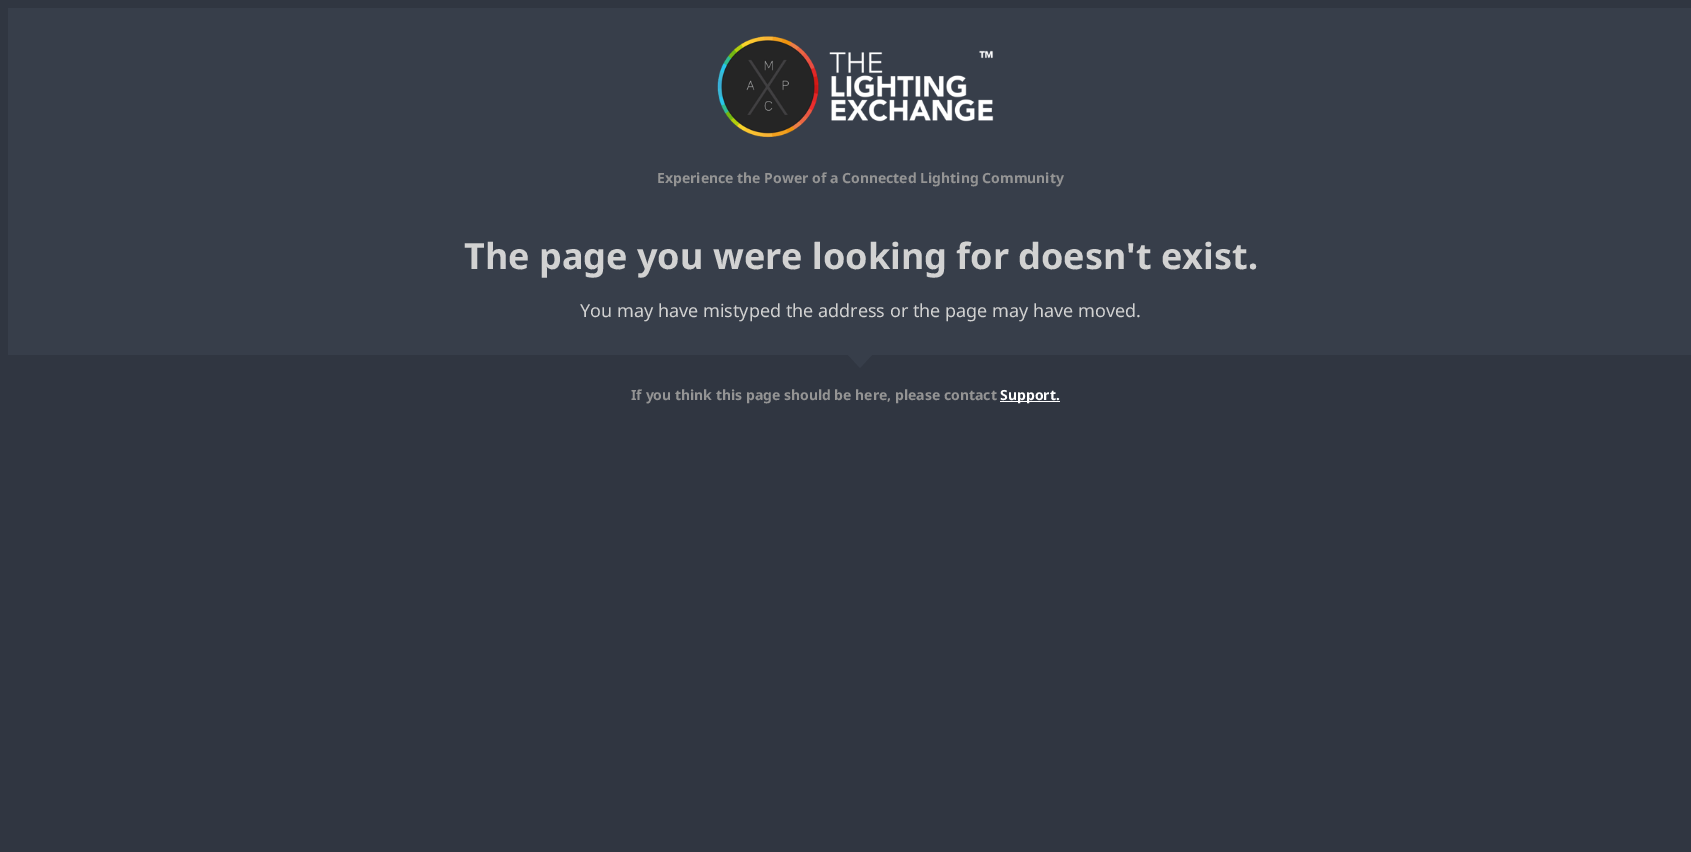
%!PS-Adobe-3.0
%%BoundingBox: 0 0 1691 852
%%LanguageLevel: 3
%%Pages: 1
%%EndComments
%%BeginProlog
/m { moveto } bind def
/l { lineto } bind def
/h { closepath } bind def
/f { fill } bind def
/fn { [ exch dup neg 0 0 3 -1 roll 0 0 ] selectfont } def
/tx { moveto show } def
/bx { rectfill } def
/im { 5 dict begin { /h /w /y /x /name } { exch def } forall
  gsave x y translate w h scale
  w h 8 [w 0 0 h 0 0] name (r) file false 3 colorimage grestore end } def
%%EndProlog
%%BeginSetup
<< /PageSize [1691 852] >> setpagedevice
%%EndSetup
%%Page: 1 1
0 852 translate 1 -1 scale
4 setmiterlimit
0.188 0.212 0.255 setrgbcolor
0 0 1691 852 bx
0.216 0.243 0.29 setrgbcolor
8 8 1683 347 bx
(image0.raw) 717 36 277 102 im
/NotoSans-Bold 14 fn
0.58 setgray
(Experience the Power of a Connected Lighting Community) 657 183 tx
/NotoSans-Bold 36 fn
0.824 setgray
(The page you were looking for doesn't exist.) 464 269 tx
/NotoSans-Regular 18 fn
(You may have mistyped the address or the page may have moved.) 580 317 tx
0.216 0.243 0.29 setrgbcolor
848 355 m 872 355 l 860 368 l h f
/NotoSans-Bold 14 fn
0.58 setgray
(If you think this page should be here, please contact) 631 400 tx
1 setgray
1000 401 60 1 bx
(Support.) 1000 400 tx
showpage
%%EOF
